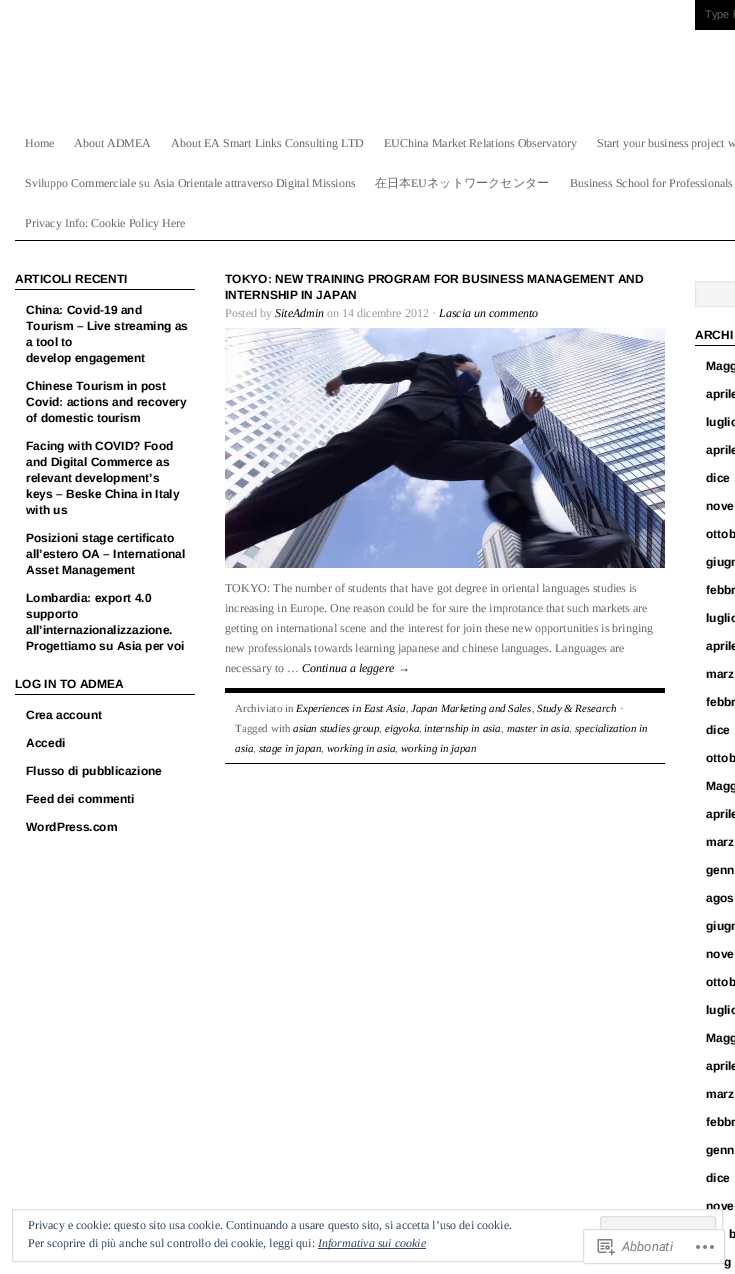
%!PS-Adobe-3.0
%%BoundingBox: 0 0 735 1274
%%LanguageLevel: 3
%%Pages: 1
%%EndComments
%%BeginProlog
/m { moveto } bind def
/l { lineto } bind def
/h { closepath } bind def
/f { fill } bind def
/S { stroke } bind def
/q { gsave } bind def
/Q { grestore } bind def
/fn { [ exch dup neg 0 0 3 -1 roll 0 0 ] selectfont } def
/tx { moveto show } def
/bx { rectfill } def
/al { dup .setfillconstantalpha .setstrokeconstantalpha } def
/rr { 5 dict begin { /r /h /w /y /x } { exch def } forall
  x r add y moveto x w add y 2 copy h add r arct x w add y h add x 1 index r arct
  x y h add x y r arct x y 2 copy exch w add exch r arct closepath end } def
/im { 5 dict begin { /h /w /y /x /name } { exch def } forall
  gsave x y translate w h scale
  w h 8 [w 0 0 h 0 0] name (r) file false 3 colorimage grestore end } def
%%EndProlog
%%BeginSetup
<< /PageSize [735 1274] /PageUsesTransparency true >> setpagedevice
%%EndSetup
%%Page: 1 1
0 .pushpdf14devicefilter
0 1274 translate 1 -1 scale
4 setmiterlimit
1 setgray
0 0 735 1274 bx
0 setgray
695 0 40 30 bx
q
705 8 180 12 rectclip
/LiberationSans-Regular 11 fn
0.4 setgray
(Type h) 705 18 tx
Q
/LiberationSerif-Regular 12 fn
0.4 setgray
(Home) 25 147 tx
(About ADMEA) 74 147 tx
(About EA Smart Links Consulting LTD) 171 147 tx
(EUChina Market Relations Observatory) 384 147 tx
(Start your business project w) 597 147 tx
(Sviluppo Commerciale su Asia Orientale attraverso Digital Missions) 25 187 tx
/WenQuanYiZenHei-Medium 12 fn
(在日本) 375 187 tx
/LiberationSerif-Regular 12 fn
(EU) 411 187 tx
/WenQuanYiZenHei-Medium 12 fn
(ネットワークセンター) 427 187 tx
/LiberationSerif-Regular 12 fn
(Business School for Professionals) 570 187 tx
(Privacy Info: Cookie Policy Here) 25 227 tx
0 setgray
15 240 720 1 bx
15 289 180 1 bx
/LiberationSans-Bold 12 fn
(ARTICOLI RECENTI) 15 283 tx
(China: Covid-19 and) 26 314 tx
(Tourism – Live streaming as) 26 330 tx
(a tool to) 26 346 tx
(develop engagement) 26 362 tx
(Chinese Tourism in post) 26 390 tx
(Covid: actions and recovery) 26 406 tx
(of domestic tourism) 26 422 tx
(Facing with COVID? Food) 26 450 tx
(and Digital Commerce as) 26 466 tx
(relevant development’s) 26 482 tx
(keys – Beske China in Italy) 26 498 tx
(with us) 26 514 tx
(Posizioni stage certificato) 26 542 tx
(all’estero OA – International) 26 558 tx
(Asset Management) 26 574 tx
(Lombardia: export 4.0) 26 602 tx
(supporto) 26 618 tx
(all’internazionalizzazione.) 26 634 tx
(Progettiamo su Asia per voi) 26 650 tx
15 694 180 1 bx
(LOG IN TO ADMEA) 15 688 tx
(Crea account) 26 719 tx
(Accedi) 26 747 tx
(Flusso di pubblicazione) 26 775 tx
(Feed dei commenti) 26 803 tx
(WordPress.com) 26 831 tx
(TOKYO: NEW TRAINING PROGRAM FOR BUSINESS MANAGEMENT AND) 225 283 tx
(INTERNSHIP IN JAPAN) 225 299 tx
/LiberationSerif-Regular 12 fn
0.6 setgray
(Posted by) 225 317 tx
/LiberationSerif-Italic 12 fn
0 setgray
(SiteAdmin) 275 317 tx
/LiberationSerif-Regular 12 fn
0.6 setgray
(on 14 dicembre 2012 ·) 327 317 tx
/LiberationSerif-Italic 12 fn
0 setgray
(Lascia un commento) 439 317 tx
(image0.raw) 225 328 440 240 im
/LiberationSerif-Regular 12 fn
0.4 setgray
(TOKYO: The number of students that have got degree in oriental languages studies is) 225 592 tx
(increasing in Europe. One reason could be for sure the improtance that such markets are) 225 612 tx
(getting on international scene and the interest for join these new opportunities is bringing) 225 632 tx
(new professionals towards learning japanese and chinese languages. Languages are) 225 652 tx
(necessary to …) 225 672 tx
/LiberationSerif-Italic 12 fn
0 setgray
(Continua a leggere →) 302 672 tx
225 688 440 5 bx
225 763 440 1 bx
/LiberationSerif-Regular 11 fn
0.4 setgray
(Archiviato in) 235 712 tx
/LiberationSerif-Italic 11 fn
0 setgray
(Experiences in East Asia) 296 712 tx
(Japan Marketing and Sales) 411 712 tx
(Study & Research) 537 712 tx
/LiberationSerif-Regular 11 fn
0.4 setgray
(·) 620 712 tx
(,) 406 712 tx
(,) 532 712 tx
(Tagged with) 235 732 tx
/LiberationSerif-Italic 11 fn
0 setgray
(asian studies group) 293 732 tx
/LiberationSerif-Regular 11 fn
0.4 setgray
(,) 379 732 tx
/LiberationSerif-Italic 11 fn
0 setgray
(eigyoka) 385 732 tx
/LiberationSerif-Regular 11 fn
0.4 setgray
(,) 419 732 tx
/LiberationSerif-Italic 11 fn
0 setgray
(internship in asia) 424 732 tx
/LiberationSerif-Regular 11 fn
0.4 setgray
(,) 501 732 tx
/LiberationSerif-Italic 11 fn
0 setgray
(master in asia) 507 732 tx
/LiberationSerif-Regular 11 fn
0.4 setgray
(,) 569 732 tx
/LiberationSerif-Italic 11 fn
0 setgray
(specialization in) 575 732 tx
(asia) 235 752 tx
/LiberationSerif-Regular 11 fn
0.4 setgray
(,) 253 752 tx
/LiberationSerif-Italic 11 fn
0 setgray
(stage in japan) 259 752 tx
/LiberationSerif-Regular 11 fn
0.4 setgray
(,) 321 752 tx
/LiberationSerif-Italic 11 fn
0 setgray
(working in asia) 327 752 tx
/LiberationSerif-Regular 11 fn
0.4 setgray
(,) 395 752 tx
/LiberationSerif-Italic 11 fn
0 setgray
(working in japan) 401 752 tx
0.961 setgray
695.5 281.5 m 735.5 281.5 l 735.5 306.5 l 695.5 306.5 l h q f Q
0.898 setgray
S
0 setgray
695 345 40 1 bx
/LiberationSans-Bold 12 fn
(ARCHI) 695 339 tx
(Magg) 706 370 tx
(aprile) 706 398 tx
(luglio) 706 426 tx
(aprile) 706 454 tx
(dice) 706 482 tx
(nove) 706 510 tx
(ottob) 706 538 tx
(giugn) 706 566 tx
(febbr) 706 594 tx
(luglio) 706 622 tx
(aprile) 706 650 tx
(marz) 706 678 tx
(febbr) 706 706 tx
(dice) 706 734 tx
(ottob) 706 762 tx
(Magg) 706 790 tx
(aprile) 706 818 tx
(marz) 706 846 tx
(genn) 706 874 tx
(agos) 706 902 tx
(giugn) 706 930 tx
(nove) 706 958 tx
(ottob) 706 986 tx
(luglio) 706 1014 tx
(Magg) 706 1042 tx
(aprile) 706 1070 tx
(marz) 706 1098 tx
(febbr) 706 1126 tx
(genn) 706 1154 tx
(dice) 706 1182 tx
(nove) 706 1210 tx
(b) 729 1238 tx
(g) 724 1266 tx
1 setgray
716 1210 2 1 bx
0.871 setgray
12.5 1209.5 710 52 rectstroke
/LiberationSerif-Regular 12 fn
0.18 0.267 0.404 setrgbcolor
(Privacy e cookie: questo sito usa cookie. Continuando a usare questo sito, si accetta l’uso dei cookie.) 28 1229 tx
0.953 setgray
600.5 1216.5 115 38 2.5 rr q f Q
0.871 setgray
S
0.18 0.267 0.404 setrgbcolor
(Per scoprire di più anche sul controllo dei cookie, leggi qui:) 28 1247 tx
318 1248 108 1 bx
/LiberationSerif-Italic 12 fn
(Informativa sui cookie) 318 1247 tx
0.98 al
1 setgray
583 1229 142 35 3 rr f
0.863 0.863 0.871 setrgbcolor
583.5 1229.5 141 34 2.5 rr S
1 al
(image1.raw) 597 1239 18 17 im
/Roboto-Italic 13 fn
0.478 0.494 0.518 setrgbcolor
(Abbonati) 622 1251 tx
(image2.raw) 696 1245 18 4 im
.poppdf14devicefilter showpage
%%EOF
